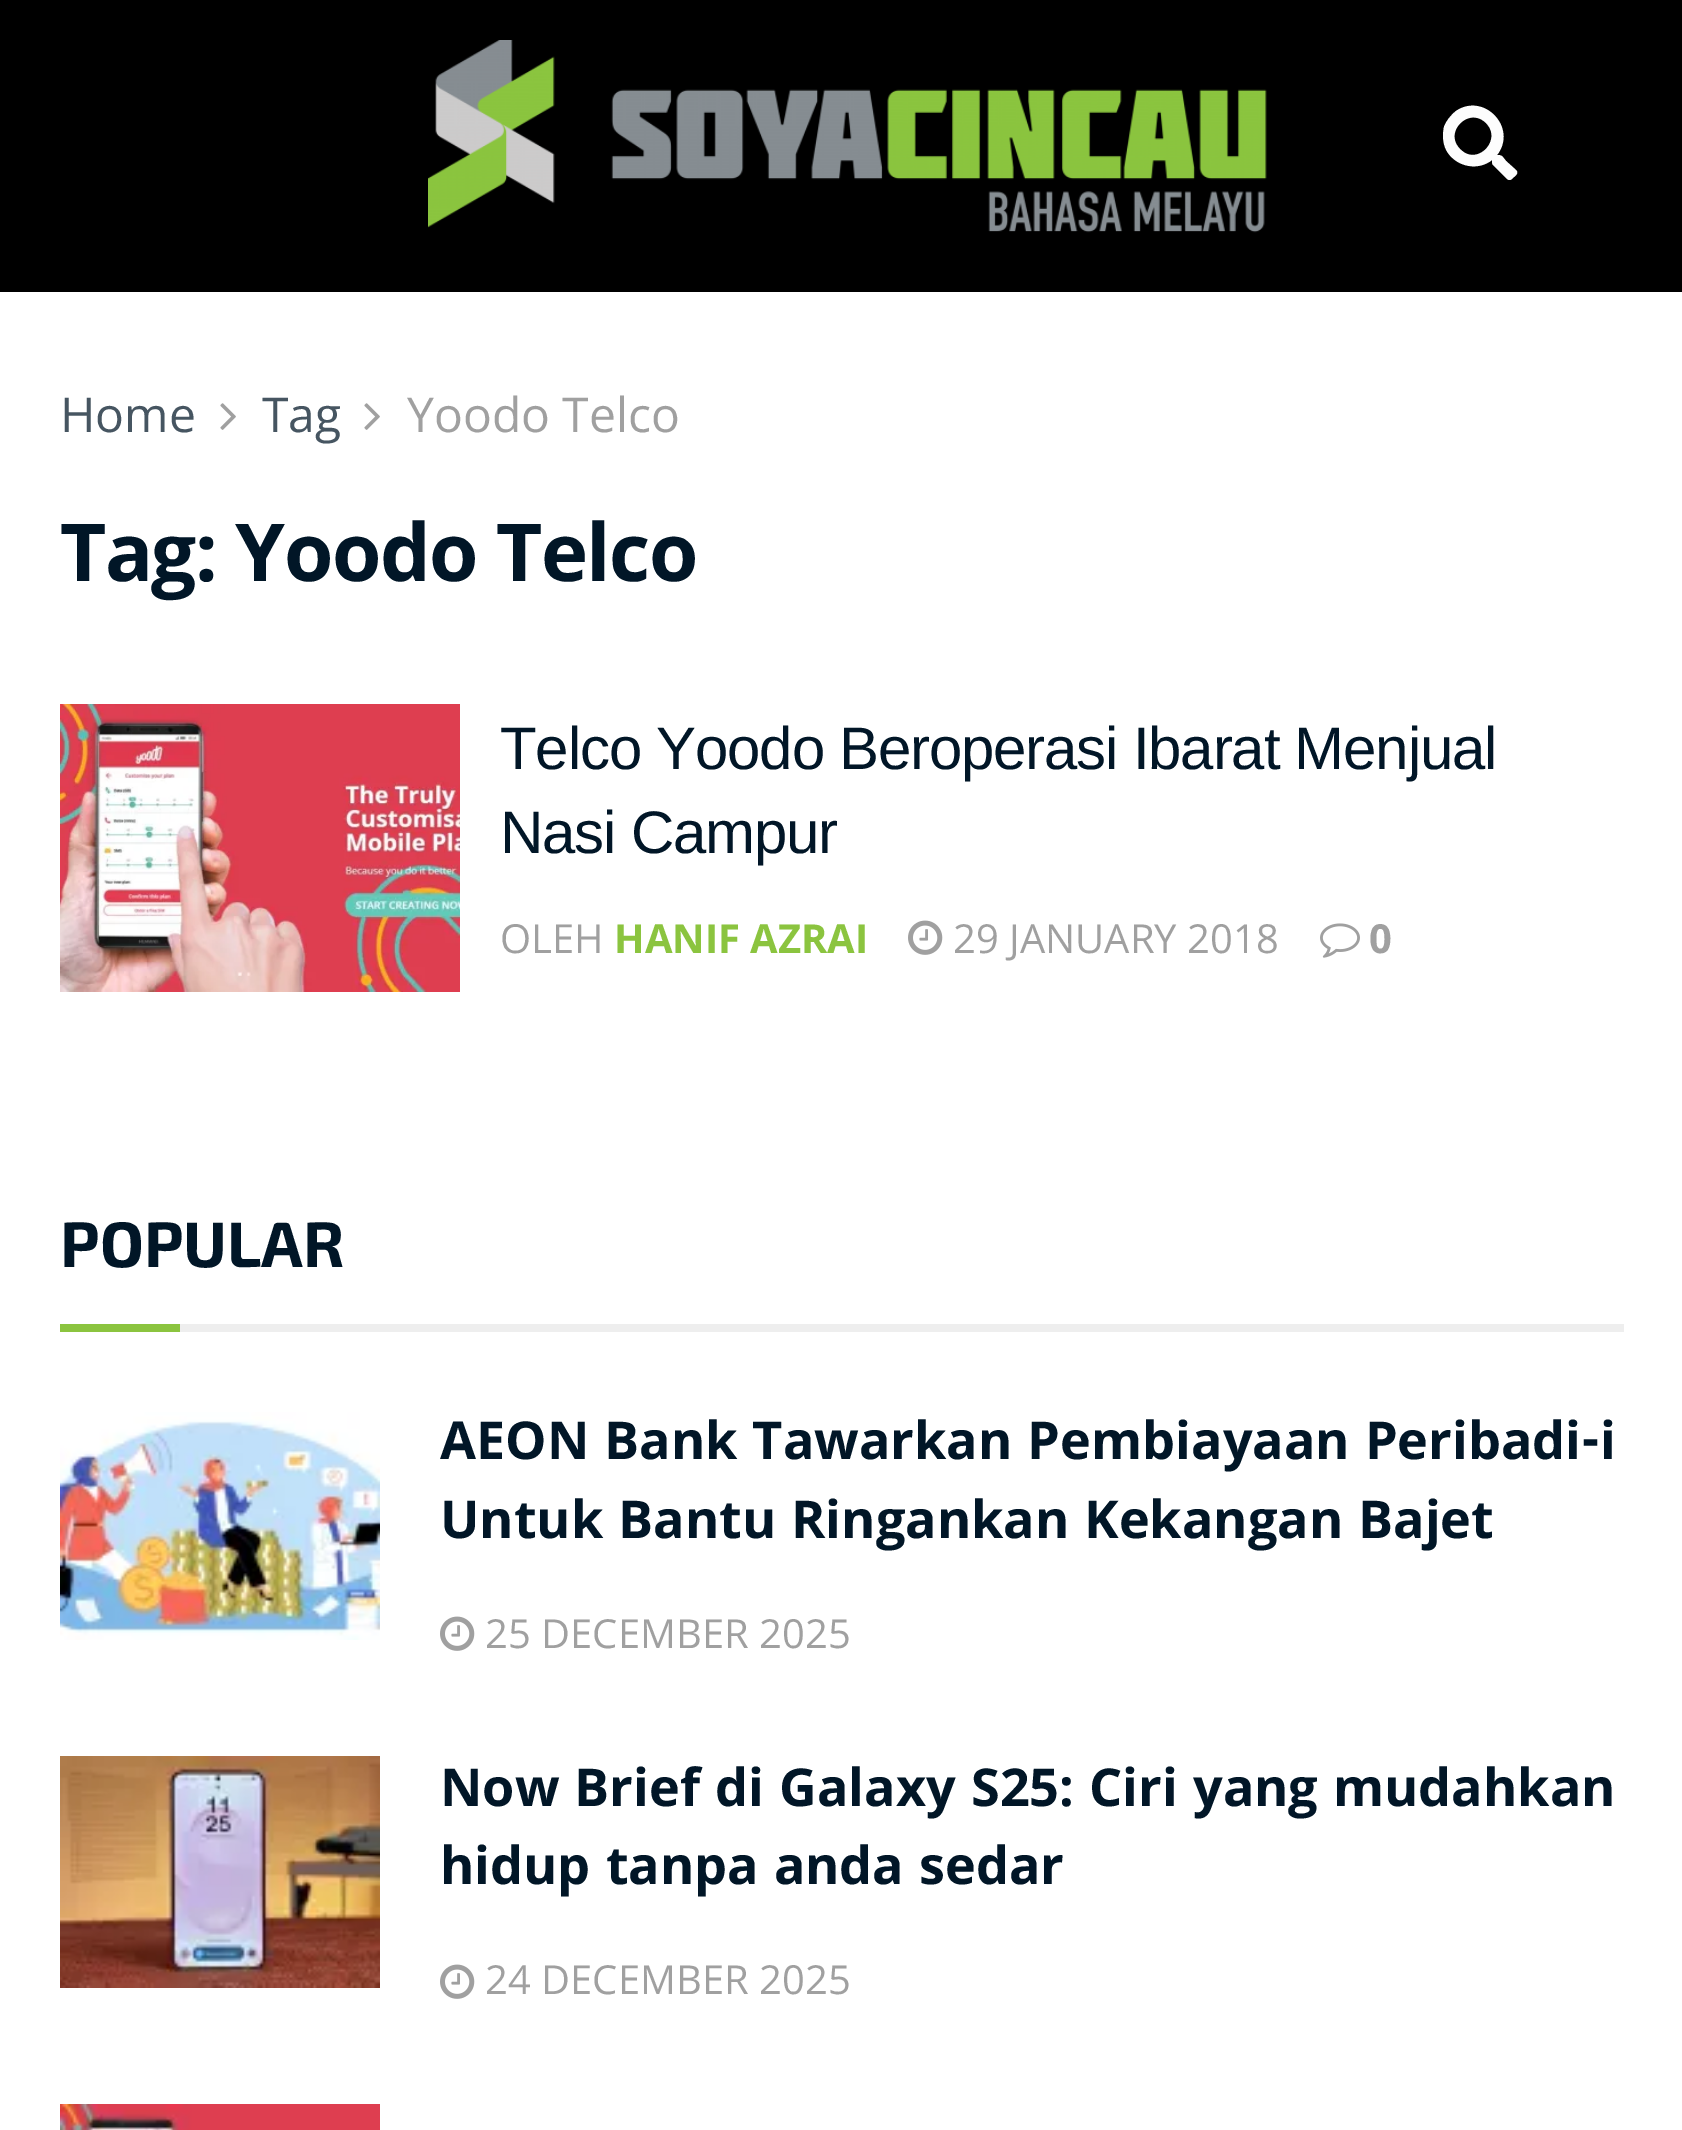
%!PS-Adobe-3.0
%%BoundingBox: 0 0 1682 2130
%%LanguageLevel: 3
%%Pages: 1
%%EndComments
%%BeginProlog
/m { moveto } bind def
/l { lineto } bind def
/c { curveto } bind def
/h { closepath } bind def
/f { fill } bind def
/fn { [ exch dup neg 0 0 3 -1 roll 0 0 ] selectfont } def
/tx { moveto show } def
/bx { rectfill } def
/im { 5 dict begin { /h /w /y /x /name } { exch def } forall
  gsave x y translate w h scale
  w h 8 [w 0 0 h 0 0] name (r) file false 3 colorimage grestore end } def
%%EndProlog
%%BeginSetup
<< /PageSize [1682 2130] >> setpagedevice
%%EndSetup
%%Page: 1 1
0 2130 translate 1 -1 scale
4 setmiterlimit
1 setgray
0 0 1682 2130 bx
0 setgray
0 0 1682 292 bx
(image0.raw) 428 40 839 193 im
0.992 setgray
1516 170 m 1519 173 1516 175 1514 177 c 1510 181 1509 181 1505 177 c 1495 167 l 1492 164 1492 164 1492 160 c 1478 171 1458 167 1448 153 c 1443 146 1442 136 1444 127 c 1446 121 1451 115 1456 111 c 1484 92 1518 128 1497 155 c 1502 155 1502 156 1506 161 c h 1460 149 m 1477 167 1503 140 1486 123 c 1469 106 1443 132 1460 149 c h f
/OpenSans-Regular 48 fn
0.275 0.333 0.38 setrgbcolor
(Home) 60 432 tx
(image1.raw) 220 403 16 27 im
(Tag) 262 432 tx
(image1.raw) 364 403 16 27 im
0.627 setgray
(Yoodo Telco) 407 432 tx
/OpenSans-Bold 80 fn
0.004 0.086 0.153 setrgbcolor
60 581 m -1.6 0 (Tag: Yoodo Telco) ashow
(image2.raw) 60 704 400 288 im
/LiberationSans-Regular 60 fn
500 769 m -1.2 0 (Telco Yoodo Beroperasi Ibarat Menjual) ashow
500 853 m -1.2 0 (Nasi Campur) ashow
/OpenSans-Regular 40 fn
0.627 setgray
(OLEH) 500 953 tx
/OpenSans-Bold 40 fn
0.545 0.769 0.247 setrgbcolor
(HANIF AZRAI) 614 953 tx
(image3.raw) 908 920 35 35 im
/OpenSans-Regular 40 fn
0.627 setgray
(29 JANUARY 2018) 953 953 tx
(image4.raw) 1320 923 40 35 im
/OpenSans-Bold 40 fn
(0) 1369 953 tx
0.933 setgray
180 1324 1444 8 bx
/Exo2-Bold 64 fn
0.004 0.086 0.153 setrgbcolor
(POPULAR) 60 1267 tx
0.545 0.769 0.247 setrgbcolor
60 1324 120 8 bx
(image5.raw) 60 1412 320 228 im
/Khula-Bold 56 fn
0.004 0.086 0.153 setrgbcolor
(AEON Bank Tawarkan Pembiayaan Peribadi-i) 440 1459 tx
(Untuk Bantu Ringankan Kekangan Bajet) 440 1538 tx
(image3.raw) 440 1616 35 35 im
/OpenSans-Regular 40 fn
0.627 setgray
(25 DECEMBER 2025) 485 1648 tx
(image6.raw) 60 1756 320 232 im
/Khula-Bold 56 fn
0.004 0.086 0.153 setrgbcolor
(Now Brief di Galaxy S25: Ciri yang mudahkan) 440 1806 tx
(hidup tanpa anda sedar) 440 1884 tx
(image3.raw) 440 1964 35 35 im
/OpenSans-Regular 40 fn
0.627 setgray
(24 DECEMBER 2025) 485 1994 tx
(image7.raw) 60 2104 320 26 im
showpage
%%EOF
